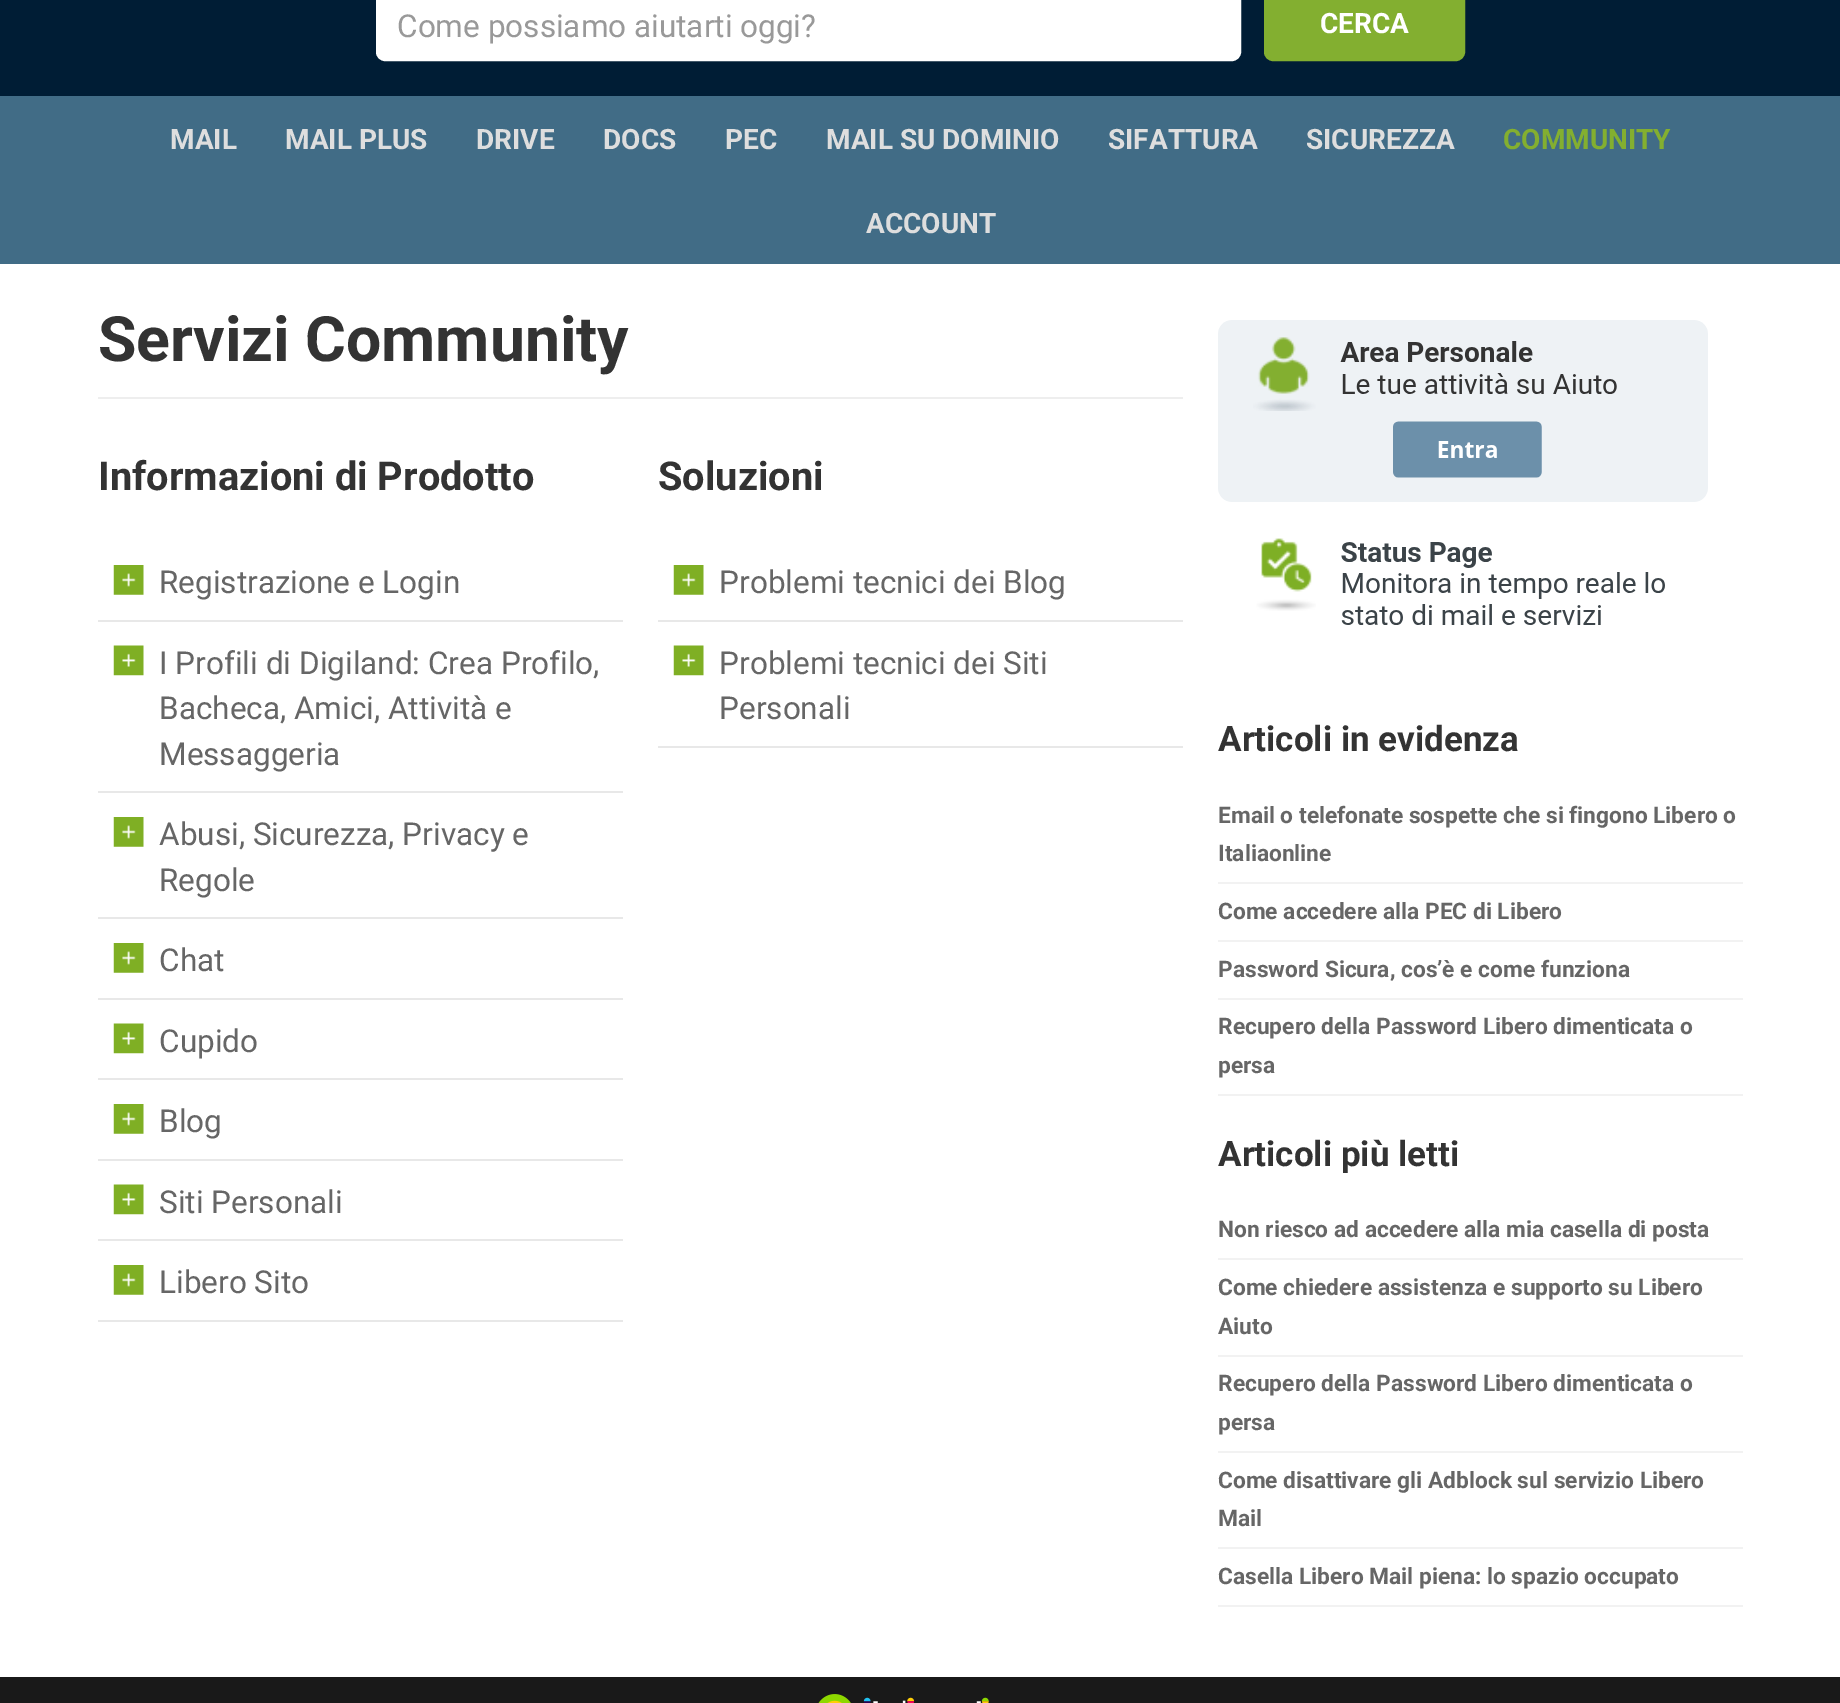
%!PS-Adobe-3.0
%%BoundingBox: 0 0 1840 1703
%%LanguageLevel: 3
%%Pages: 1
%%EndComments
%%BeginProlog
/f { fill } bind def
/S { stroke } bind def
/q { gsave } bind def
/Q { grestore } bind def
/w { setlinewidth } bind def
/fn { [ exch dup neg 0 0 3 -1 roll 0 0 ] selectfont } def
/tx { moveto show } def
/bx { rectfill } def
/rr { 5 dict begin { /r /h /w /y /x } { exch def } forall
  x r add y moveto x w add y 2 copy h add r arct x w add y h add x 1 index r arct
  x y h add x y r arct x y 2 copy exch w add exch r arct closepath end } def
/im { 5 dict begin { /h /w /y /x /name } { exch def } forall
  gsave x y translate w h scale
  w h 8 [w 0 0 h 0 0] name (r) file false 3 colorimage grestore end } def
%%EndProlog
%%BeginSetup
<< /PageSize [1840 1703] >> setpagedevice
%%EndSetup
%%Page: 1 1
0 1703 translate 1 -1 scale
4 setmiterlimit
1 setgray
0 0 1840 1703 bx
0 0.114 0.208 setrgbcolor
0 0 1840 96 bx
1 setgray
378 -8 861 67 7 rr q f Q
4 w
S
/Roboto-Regular 31.5 fn
0.6 setgray
(Come possiamo aiutarti oggi?) 397 37 tx
0.514 0.686 0.188 setrgbcolor
1266 -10 197 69 7 rr q f Q
S
/Roboto-Bold 28 fn
1 setgray
(CERCA) 1320 33 tx
0.255 0.424 0.525 setrgbcolor
0 96 1840 168 bx
0.871 setgray
(MAIL) 170 149 tx
(MAIL PLUS) 285 149 tx
(DRIVE) 476 149 tx
(DOCS) 603 149 tx
(PEC) 725 149 tx
(MAIL SU DOMINIO) 826 149 tx
(SIFATTURA) 1108 149 tx
(SICUREZZA) 1306 149 tx
0.514 0.686 0.188 setrgbcolor
(COMMUNITY) 1503 149 tx
0.871 setgray
(ACCOUNT) 866 233 tx
/Roboto-Bold 62.5 fn
0.2 setgray
(Servizi Community) 98 361 tx
0.933 setgray
98 397 1085 2 bx
/Roboto-Bold 39.75 fn
0.2 setgray
(Informazioni di Prodotto) 98 490 tx
0.91 setgray
98 620 525 2 bx
(image0.raw) 113 565 31 30 im
/Roboto-Regular 31.5 fn
0.4 setgray
(Registrazione e Login) 159 593 tx
0.91 setgray
98 791 525 2 bx
(image1.raw) 113 645 31 31 im
0.4 setgray
(I Profili di Digiland: Crea Profilo,) 159 674 tx
(Bacheca, Amici, Attività e) 159 719 tx
(Messaggeria) 159 765 tx
0.91 setgray
98 917 525 2 bx
(image0.raw) 113 817 31 30 im
0.4 setgray
(Abusi, Sicurezza, Privacy e) 159 845 tx
(Regole) 159 891 tx
0.91 setgray
98 998 525 2 bx
(image0.raw) 113 943 31 30 im
0.4 setgray
(Chat) 159 971 tx
0.91 setgray
98 1078 525 2 bx
(image1.raw) 113 1023 31 31 im
0.4 setgray
(Cupido) 159 1052 tx
0.91 setgray
98 1159 525 2 bx
(image0.raw) 113 1104 31 30 im
0.4 setgray
(Blog) 159 1132 tx
0.91 setgray
98 1239 525 2 bx
(image1.raw) 113 1184 31 31 im
0.4 setgray
(Siti Personali) 159 1213 tx
0.91 setgray
98 1320 525 2 bx
(image0.raw) 113 1265 31 30 im
0.4 setgray
(Libero Sito) 159 1293 tx
/Roboto-Bold 39.75 fn
0.2 setgray
(Soluzioni) 658 490 tx
0.91 setgray
658 620 525 2 bx
(image0.raw) 673 565 31 30 im
/Roboto-Regular 31.5 fn
0.4 setgray
(Problemi tecnici dei Blog) 719 593 tx
0.91 setgray
658 746 525 2 bx
(image1.raw) 673 645 31 31 im
0.4 setgray
(Problemi tecnici dei Siti) 719 674 tx
(Personali) 719 719 tx
(image2.raw) 1218 320 490 305 im
/Roboto-Bold 35 fn
0.2 setgray
(Articoli in evidenza) 1218 751 tx
0.949 setgray
1218 882 525 2 bx
/Roboto-Bold 22.75 fn
0.4 setgray
(Email o telefonate sospette che si fingono Libero o) 1218 823 tx
(Italiaonline) 1218 861 tx
0.949 setgray
1218 940 525 2 bx
0.4 setgray
(Come accedere alla PEC di Libero) 1218 919 tx
0.949 setgray
1218 998 525 2 bx
0.4 setgray
(Password Sicura, cos’è e come funziona) 1218 977 tx
0.949 setgray
1218 1094 525 2 bx
0.4 setgray
(Recupero della Password Libero dimenticata o) 1218 1034 tx
(persa) 1218 1073 tx
/Roboto-Bold 35 fn
0.2 setgray
(Articoli più letti) 1218 1166 tx
0.949 setgray
1218 1258 525 2 bx
/Roboto-Bold 22.75 fn
0.4 setgray
(Non riesco ad accedere alla mia casella di posta) 1218 1237 tx
0.949 setgray
1218 1355 525 2 bx
0.4 setgray
(Come chiedere assistenza e supporto su Libero) 1218 1295 tx
(Aiuto) 1218 1334 tx
0.949 setgray
1218 1451 525 2 bx
0.4 setgray
(Recupero della Password Libero dimenticata o) 1218 1391 tx
(persa) 1218 1430 tx
0.949 setgray
1218 1547 525 2 bx
0.4 setgray
(Come disattivare gli Adblock sul servizio Libero) 1218 1488 tx
(Mail) 1218 1526 tx
0.949 setgray
1218 1605 525 2 bx
0.4 setgray
(Casella Libero Mail piena: lo spazio occupato) 1218 1584 tx
0.098 setgray
0 1677 1840 26 bx
(image3.raw) 818 1694 171 9 im
showpage
%%EOF
